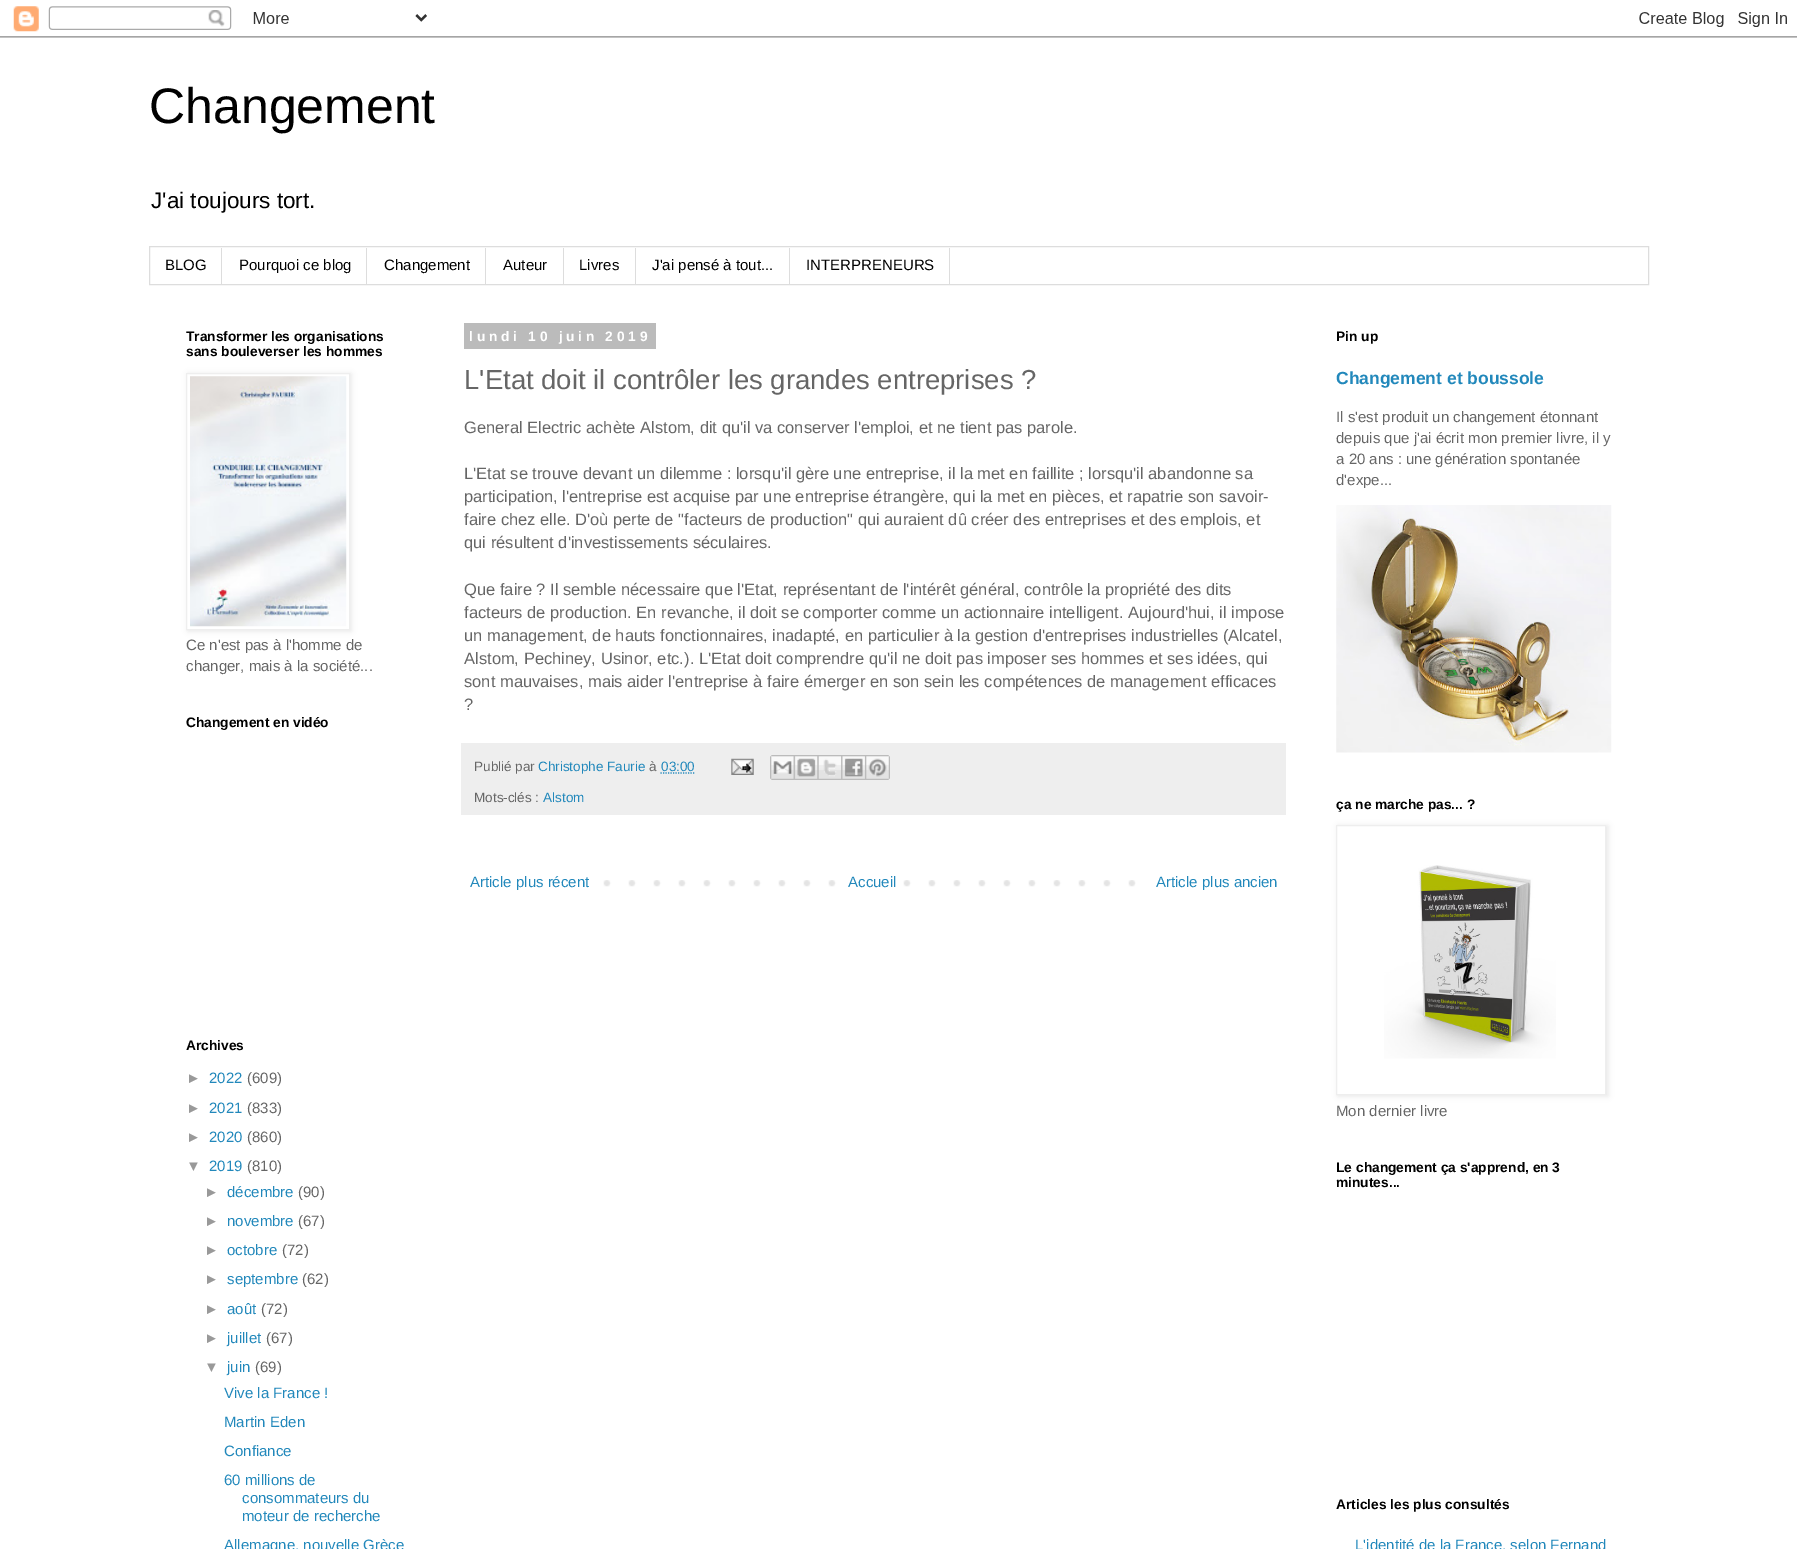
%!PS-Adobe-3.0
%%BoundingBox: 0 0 1797 1549
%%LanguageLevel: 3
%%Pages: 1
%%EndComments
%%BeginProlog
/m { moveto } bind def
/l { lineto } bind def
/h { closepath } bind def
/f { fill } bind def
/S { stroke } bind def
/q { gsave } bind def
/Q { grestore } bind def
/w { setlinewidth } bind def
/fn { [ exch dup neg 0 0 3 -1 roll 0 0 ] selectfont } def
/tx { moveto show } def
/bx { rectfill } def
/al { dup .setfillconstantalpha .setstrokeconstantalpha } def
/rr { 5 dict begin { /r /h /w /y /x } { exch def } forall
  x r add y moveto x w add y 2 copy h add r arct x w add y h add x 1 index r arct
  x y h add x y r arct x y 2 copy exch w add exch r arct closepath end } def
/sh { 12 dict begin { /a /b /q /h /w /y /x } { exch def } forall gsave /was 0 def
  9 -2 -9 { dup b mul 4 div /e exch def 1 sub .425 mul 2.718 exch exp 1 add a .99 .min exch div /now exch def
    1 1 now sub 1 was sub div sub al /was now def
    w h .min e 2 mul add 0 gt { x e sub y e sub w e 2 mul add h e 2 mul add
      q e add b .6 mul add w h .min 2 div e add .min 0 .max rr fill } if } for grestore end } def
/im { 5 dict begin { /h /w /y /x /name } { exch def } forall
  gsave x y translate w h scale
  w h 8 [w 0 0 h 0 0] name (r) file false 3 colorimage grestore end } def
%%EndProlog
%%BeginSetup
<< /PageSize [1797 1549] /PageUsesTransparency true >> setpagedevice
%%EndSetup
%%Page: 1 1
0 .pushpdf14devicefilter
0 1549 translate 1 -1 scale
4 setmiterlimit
1 setgray
0 0 1797 1549 bx
(image0.raw) 0 6 1797 32 im
/LiberationSans-Regular 50 fn
0 setgray
(Changement) 149 123 tx
/LiberationSans-Regular 22.5 fn
(J'ai toujours tort.) 151 208 tx
0.867 setgray
149.5 246.5 1499 38 rectstroke
221 248 1 36 bx
/LiberationSans-Regular 15 fn
0 setgray
(BLOG) 165 270 tx
0.867 setgray
366 248 1 36 bx
0 setgray
(Pourquoi ce blog) 239 270 tx
0.867 setgray
485 248 1 36 bx
0 setgray
(Changement) 384 270 tx
0.867 setgray
563 248 1 36 bx
0 setgray
(Auteur) 503 270 tx
0.867 setgray
635 248 1 36 bx
0 setgray
(Livres) 579 270 tx
0.867 setgray
789 248 1 36 bx
0 setgray
(J'ai pensé à tout...) 652 270 tx
0.867 setgray
949 248 1 36 bx
0 setgray
(INTERPRENEURS) 806 270 tx
/LiberationSans-Bold 13.75 fn
(Transformer les organisations) 186 341 tx
(sans bouleverser les hommes) 186 356 tx
188 374 163 257 0 3 0.1 sh
1 setgray
186.5 373.5 m 349.5 373.5 l 349.5 629.5 l 186.5 629.5 l h q f Q
0.933 setgray
S
(image1.raw) 190 376 157 251 im
/LiberationSans-Regular 15 fn
0.4 setgray
(Ce n'est pas à l'homme de) 186 650 tx
(changer, mais à la société...) 186 671 tx
/LiberationSans-Bold 13.75 fn
0 setgray
(Changement en vidéo) 186 727 tx
(Archives) 186 1050 tx
/LiberationSans-Regular 15 fn
0.6 setgray
(►) 186 1083 tx
0.133 0.533 0.733 setrgbcolor
(2022) 209 1083 tx
0.4 setgray
(\(609\)) 247 1083 tx
0.6 setgray
(►) 186 1113 tx
0.133 0.533 0.733 setrgbcolor
(2021) 209 1113 tx
0.4 setgray
(\(833\)) 247 1113 tx
0.6 setgray
(►) 186 1142 tx
0.133 0.533 0.733 setrgbcolor
(2020) 209 1142 tx
0.4 setgray
(\(860\)) 247 1142 tx
0.6 setgray
(▼) 186 1171 tx
0.133 0.533 0.733 setrgbcolor
(2019) 209 1171 tx
0.4 setgray
(\(810\)) 247 1171 tx
0.6 setgray
(►) 204 1197 tx
0.133 0.533 0.733 setrgbcolor
(décembre) 227 1197 tx
0.4 setgray
(\(90\)) 298 1197 tx
0.6 setgray
(►) 204 1226 tx
0.133 0.533 0.733 setrgbcolor
(novembre) 227 1226 tx
0.4 setgray
(\(67\)) 298 1226 tx
0.6 setgray
(►) 204 1255 tx
0.133 0.533 0.733 setrgbcolor
(octobre) 227 1255 tx
0.4 setgray
(\(72\)) 282 1255 tx
0.6 setgray
(►) 204 1284 tx
0.133 0.533 0.733 setrgbcolor
(septembre) 227 1284 tx
0.4 setgray
(\(62\)) 302 1284 tx
0.6 setgray
(►) 204 1314 tx
0.133 0.533 0.733 setrgbcolor
(août) 227 1314 tx
0.4 setgray
(\(72\)) 261 1314 tx
0.6 setgray
(►) 204 1343 tx
0.133 0.533 0.733 setrgbcolor
(juillet) 227 1343 tx
0.4 setgray
(\(67\)) 266 1343 tx
0.6 setgray
(▼) 204 1372 tx
0.133 0.533 0.733 setrgbcolor
(juin) 227 1372 tx
0.4 setgray
(\(69\)) 255 1372 tx
0.133 0.533 0.733 setrgbcolor
(Vive la France !) 224 1398 tx
(Martin Eden) 224 1427 tx
(Confiance) 224 1456 tx
(60 millions de) 224 1485 tx
(consommateurs du) 242 1503 tx
(moteur de recherche) 242 1521 tx
(Allemagne, nouvelle Grèce) 224 1550 tx
0.733 setgray
464 323 192 26 bx
/LiberationSans-Bold 13.75 fn
1 setgray
469 341 m 3.75 0 (lundi 10 juin 2019) ashow
/LiberationSans-Regular 27.5 fn
0.4 setgray
(L'Etat doit il contrôler les grandes entreprises ?) 464 389 tx
/LiberationSans-Regular 16.5 fn
(General Electric achète Alstom, dit qu'il va conserver l'emploi, et ne tient pas parole.) 464 433 tx
(L'Etat se trouve devant un dilemme : lorsqu'il gère une entreprise, il la met en faillite ; lorsqu'il abandonne sa) 464 479 tx
(participation, l'entreprise est acquise par une entreprise étrangère, qui la met en pièces, et rapatrie son savoir-) 464 502 tx
(faire chez elle. D'où perte de "facteurs de production" qui auraient dû créer des entreprises et des emplois, et) 464 525 tx
(qui résultent d'investissements séculaires.) 464 548 tx
(Que faire ? Il semble nécessaire que l'Etat, représentant de l'intérêt général, contrôle la propriété des dits) 464 595 tx
(facteurs de production. En revanche, il doit se comporter comme un actionnaire intelligent. Aujourd'hui, il impose) 464 618 tx
(un management, de hauts fonctionnaires, inadapté, en particulier à la gestion d'entreprises industrielles \(Alcatel,) 464 641 tx
(Alstom, Pechiney, Usinor, etc.\). L'Etat doit comprendre qu'il ne doit pas imposer ses hommes et ses idées, qui) 464 664 tx
(sont mauvaises, mais aider l'entreprise à faire émerger en son sein les compétences de management efficaces) 464 687 tx
(?) 464 710 tx
0.933 setgray
461 743 825 72 bx
/LiberationSans-Regular 13.5 fn
0.4 setgray
(Publié par) 474 771 tx
0.133 0.533 0.733 setrgbcolor
(Christophe Faurie) 538 771 tx
0.4 setgray
(à) 649 771 tx
0.133 0.533 0.733 setrgbcolor
(03:00) 661 771 tx
1.2 w
[1.25 1.25] 0 setdash
660.5 773 m 694.5 773 l S
(image2.raw) 731 758 23 17 im
(image3.raw) 770 755 24 25 im
(image4.raw) 793 755 25 25 im
(image5.raw) 817 755 25 25 im
(image6.raw) 841 755 24 25 im
(image7.raw) 865 755 25 25 im
0.4 setgray
(Mots-clés :) 474 802 tx
0.133 0.533 0.733 setrgbcolor
(Alstom) 543 802 tx
(image8.raw) 603 880 533 7 im
/LiberationSans-Regular 15 fn
(Article plus récent) 470 887 tx
1 setgray
853 880 33 7 bx
0.133 0.533 0.733 setrgbcolor
(Accueil) 848 887 tx
(Article plus ancien) 1156 887 tx
/LiberationSans-Bold 13.75 fn
0 setgray
(Pin up) 1336 341 tx
/LiberationSans-Bold 17.5 fn
0.133 0.533 0.733 setrgbcolor
(Changement et boussole) 1336 384 tx
/LiberationSans-Regular 15 fn
0.4 setgray
(Il s'est produit un changement étonnant) 1336 422 tx
(depuis que j'ai écrit mon premier livre, il y) 1336 443 tx
(a 20 ans : une génération spontanée) 1336 464 tx
(d'expe...) 1336 485 tx
(image9.raw) 1336 505 276 248 im
/LiberationSans-Bold 13.75 fn
0 setgray
(ça ne marche pas... ?) 1336 809 tx
1338 826 270 270 0 3 0.1 sh
1 setgray
1336.5 825.5 m 1605.5 825.5 l 1605.5 1094.5 l 1336.5 1094.5 l h q f Q
0.933 setgray
1 w
[] 0 setdash
S
(image10.raw) 1384 865 172 194 im
/LiberationSans-Regular 15 fn
0.4 setgray
(Mon dernier livre) 1336 1116 tx
/LiberationSans-Bold 13.75 fn
0 setgray
(Le changement ça s'apprend, en 3) 1336 1172 tx
(minutes...) 1336 1187 tx
(Articles les plus consultés) 1336 1509 tx
/LiberationSans-Regular 15 fn
0.133 0.533 0.733 setrgbcolor
(L'identité de la France, selon Fernand) 1355 1550 tx
.poppdf14devicefilter showpage
%%EOF
